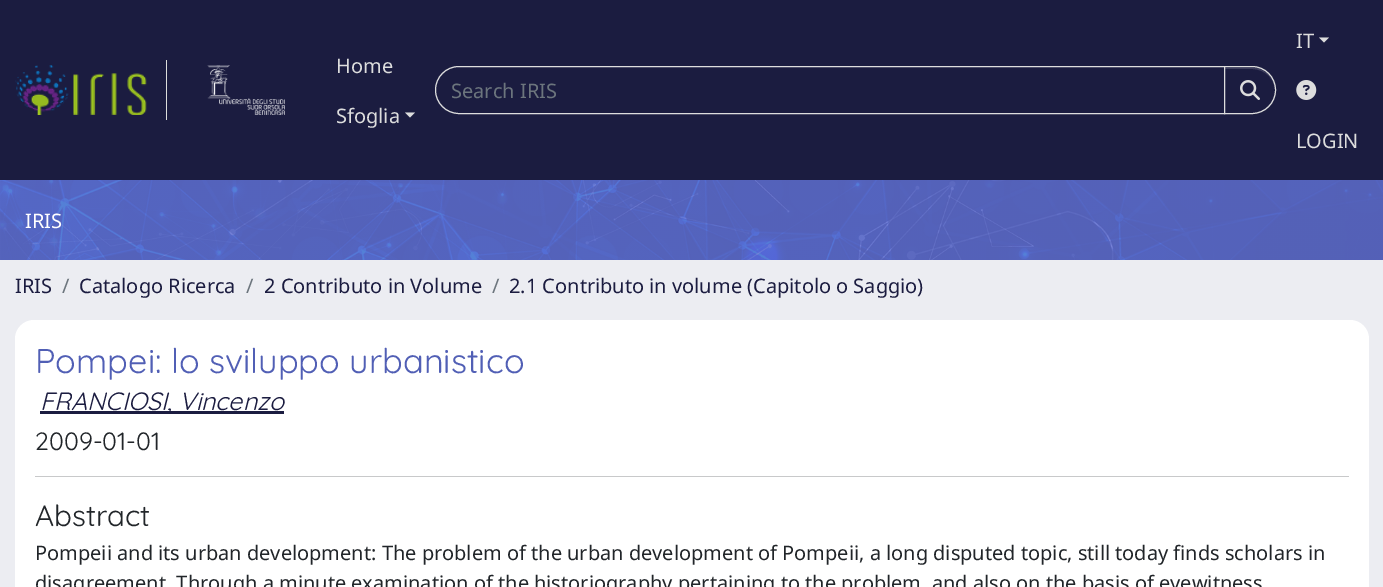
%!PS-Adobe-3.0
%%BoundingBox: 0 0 1383 587
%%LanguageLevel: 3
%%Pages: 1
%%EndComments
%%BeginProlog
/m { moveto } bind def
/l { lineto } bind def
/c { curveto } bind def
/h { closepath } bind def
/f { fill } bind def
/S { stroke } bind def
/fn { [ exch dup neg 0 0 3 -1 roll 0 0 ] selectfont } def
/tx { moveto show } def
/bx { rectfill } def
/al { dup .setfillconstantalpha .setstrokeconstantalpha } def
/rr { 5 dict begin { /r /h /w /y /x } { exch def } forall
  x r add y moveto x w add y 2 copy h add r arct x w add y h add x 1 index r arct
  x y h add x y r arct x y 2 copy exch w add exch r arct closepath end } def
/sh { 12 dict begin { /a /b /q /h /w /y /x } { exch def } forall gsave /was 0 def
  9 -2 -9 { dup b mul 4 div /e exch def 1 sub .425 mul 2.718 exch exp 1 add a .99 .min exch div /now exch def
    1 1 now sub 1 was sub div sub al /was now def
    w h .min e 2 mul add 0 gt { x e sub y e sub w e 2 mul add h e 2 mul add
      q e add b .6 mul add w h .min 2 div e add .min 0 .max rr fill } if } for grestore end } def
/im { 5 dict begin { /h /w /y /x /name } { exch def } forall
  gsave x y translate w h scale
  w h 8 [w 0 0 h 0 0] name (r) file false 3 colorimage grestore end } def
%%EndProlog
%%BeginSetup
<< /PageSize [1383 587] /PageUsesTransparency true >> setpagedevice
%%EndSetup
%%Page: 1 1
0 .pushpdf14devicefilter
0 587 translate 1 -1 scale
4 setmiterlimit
0.925 0.929 0.949 setrgbcolor
0 0 1383 587 bx
0.106 0.11 0.251 setrgbcolor
0 0 1383 180 bx
0.867 setgray
166 60 1 60 bx
(image0.raw) 15 65 132 50 im
(image1.raw) 207 65 78 50 im
/NotoSans-Regular 20 fn
(Home) 336 73 tx
(Sfoglia) 336 123 tx
405 112.5 m 415 112.5 l 410 117.5 l h f
459 66.5 m 1224.5 66.5 l 1224.5 113.5 l 459 113.5 l 446 113.5 435.5 103 435.5 90 c 435.5 77 446 66.5 459 66.5 c h S
0.424 0.459 0.49 setrgbcolor
(Search IRIS) 451 98 tx
0 setgray
1224 68 52 47 23.5 0.5 0.07 sh
0.106 0.11 0.251 setrgbcolor
1224 66 m 1252 66 l 1265.5 66 1276 76.5 1276 90 c 1276 103.5 1265.5 114 1252 114 c 1224 114 l h f
0.239 0.243 0.365 setrgbcolor
1225 69 m 1252 69 l 1265 69 1275 79 1275 91 c 1275 80 1267 71 1257 68 c 1225 68 l h f
0.867 setgray
1224.5 66.5 m 1252 66.5 l 1265 66.5 1275.5 77 1275.5 90 c 1275.5 103 1265 113.5 1252 113.5 c 1224.5 113.5 l h S
(image2.raw) 1240 80 20 20 im
(IT) 1296 48 tx
1319 37.5 m 1329 37.5 l 1324 42.5 l h f
(image3.raw) 1296 80 21 20 im
(LOGIN) 1296 148 tx
(image4.raw) 0 180 1383 80 im
1 setgray
(IRIS) 25 228 tx
0.106 0.11 0.251 setrgbcolor
(IRIS) 15 293 tx
0.424 0.459 0.49 setrgbcolor
(/) 62 293 tx
0.106 0.11 0.251 setrgbcolor
(Catalogo Ricerca) 79 293 tx
0.424 0.459 0.49 setrgbcolor
(/) 246 293 tx
0.106 0.11 0.251 setrgbcolor
(2 Contributo in Volume) 264 293 tx
0.424 0.459 0.49 setrgbcolor
(/) 492 293 tx
0.106 0.11 0.251 setrgbcolor
(2.1 Contributo in volume \(Capitolo o Saggio\)) 509 293 tx
1 setgray
15 320 1354 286 19 rr f
/Quicksand-Regular 34.25 fn
0.318 0.373 0.71 setrgbcolor
(Pompei: lo sviluppo urbanistico) 35 373 tx
0.106 0.11 0.251 setrgbcolor
40 411 244 3 bx
/Quicksand-Italic 25 fn
(FRANCIOSI, Vincenzo) 40 410 tx
/Quicksand-Regular 25 fn
0.129 0.145 0.161 setrgbcolor
(2009-01-01) 35 450 tx
0.784 0.788 0.792 setrgbcolor
35 476 1314 1 bx
/Quicksand-Regular 29.5 fn
0.129 0.145 0.161 setrgbcolor
(Abstract) 35 526 tx
/NotoSans-Regular 20 fn
(Pompeii and its urban development: The problem of the urban development of Pompeii, a long disputed topic, still today finds scholars in) 35 560 tx
(disagreement. Through a minute examination of the historiography pertaining to the problem, and also on the basis of eyewitness) 35 590 tx
.poppdf14devicefilter showpage
%%EOF
